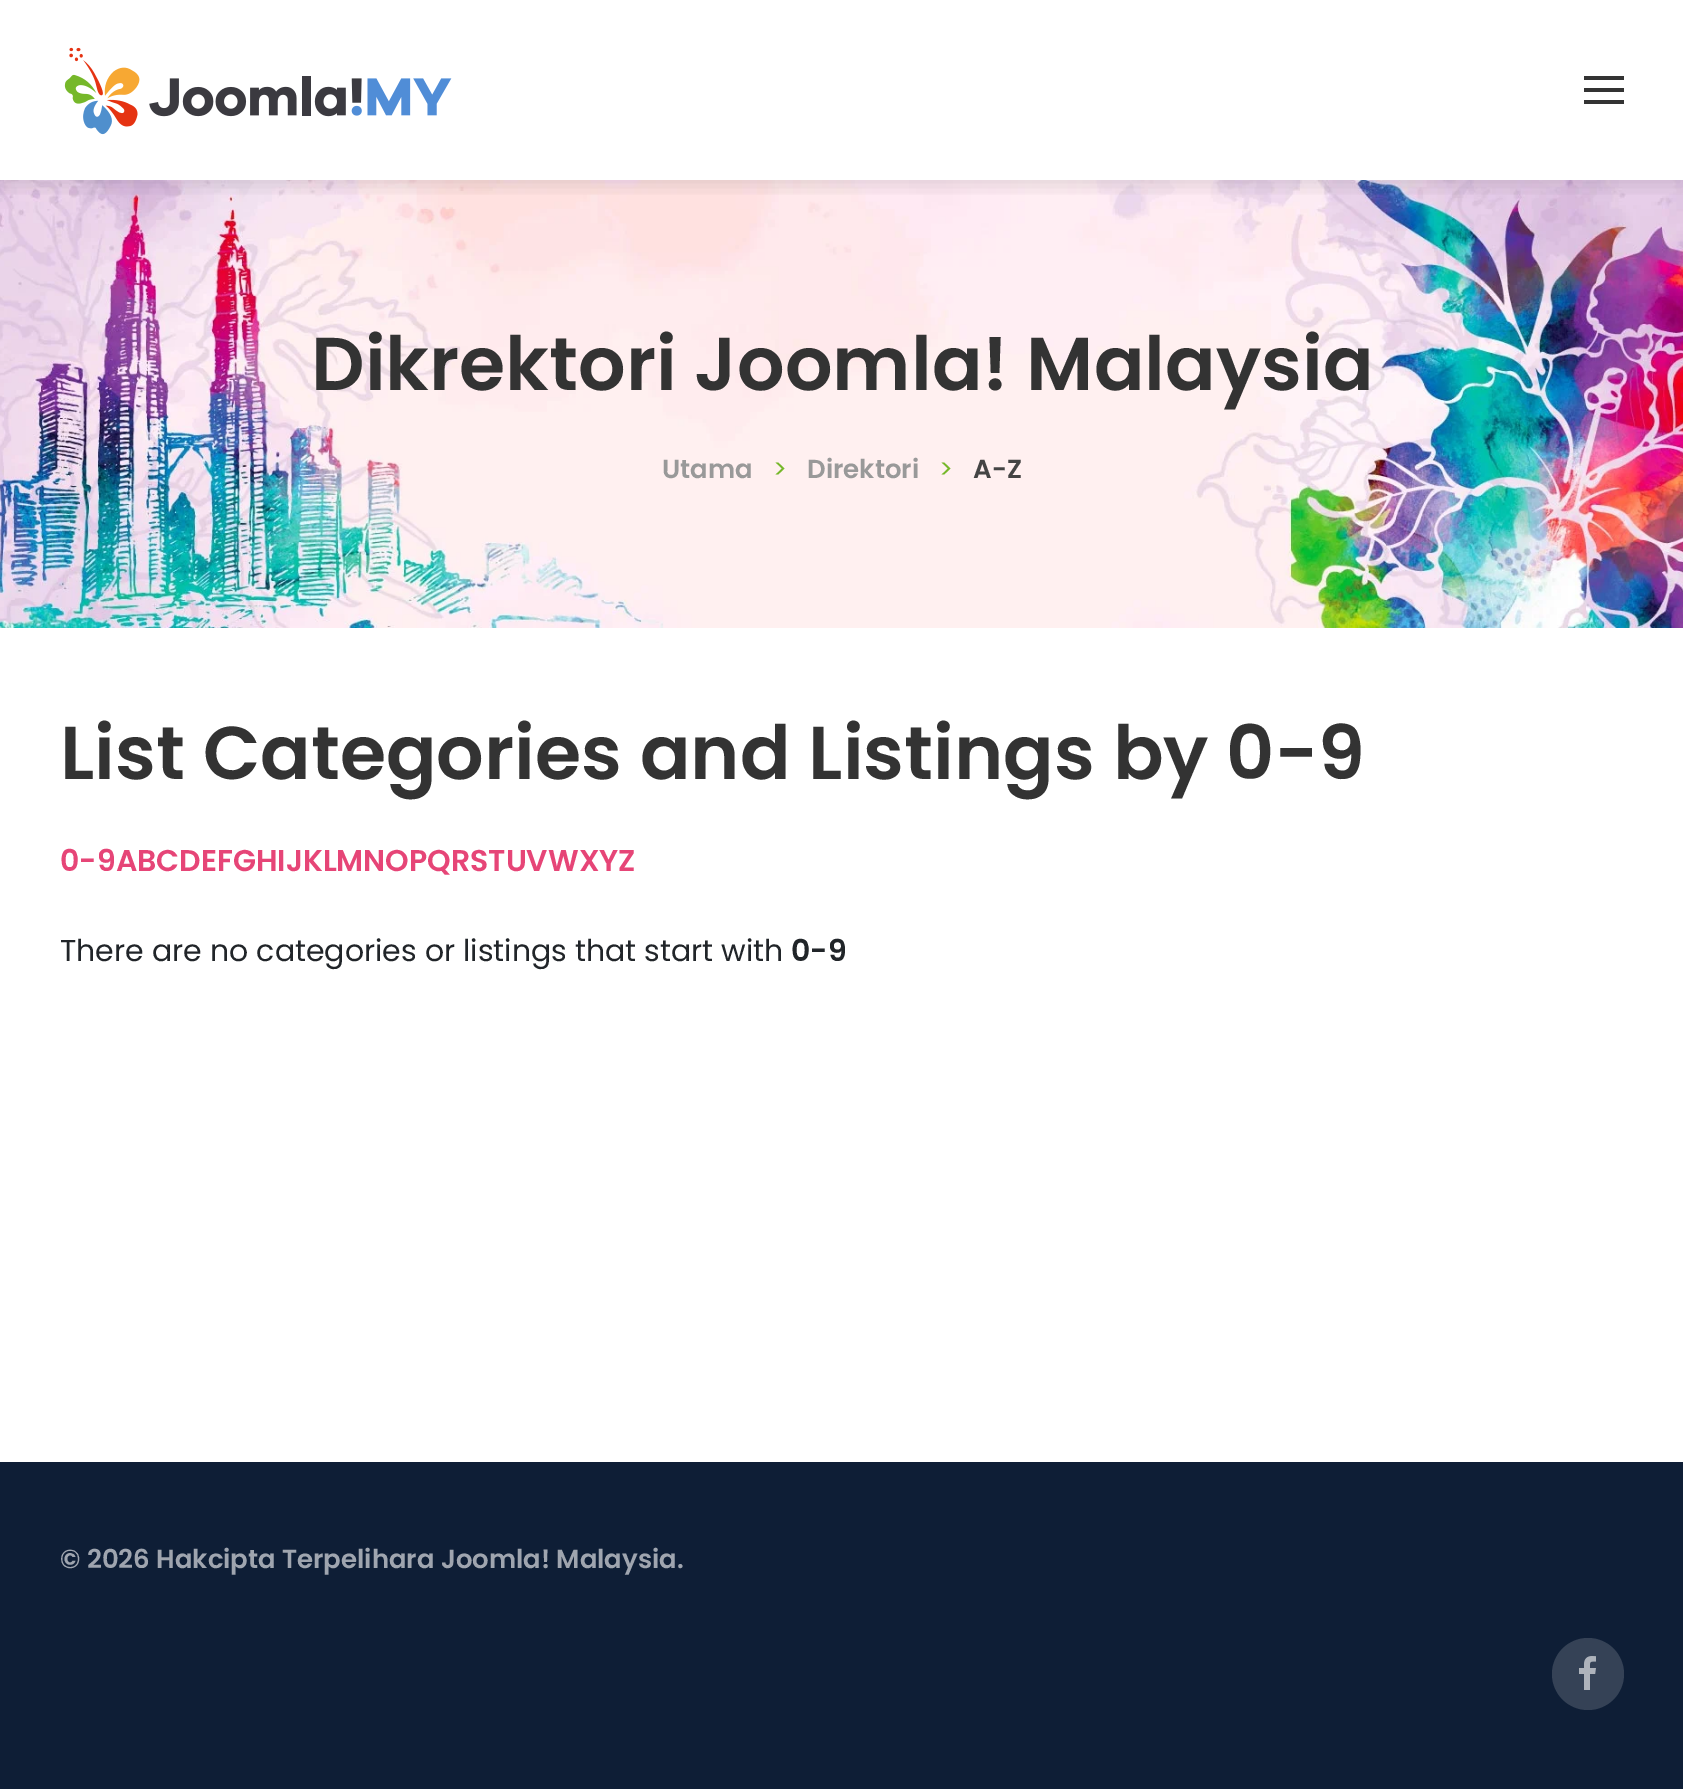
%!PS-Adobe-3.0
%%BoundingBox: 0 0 1683 1789
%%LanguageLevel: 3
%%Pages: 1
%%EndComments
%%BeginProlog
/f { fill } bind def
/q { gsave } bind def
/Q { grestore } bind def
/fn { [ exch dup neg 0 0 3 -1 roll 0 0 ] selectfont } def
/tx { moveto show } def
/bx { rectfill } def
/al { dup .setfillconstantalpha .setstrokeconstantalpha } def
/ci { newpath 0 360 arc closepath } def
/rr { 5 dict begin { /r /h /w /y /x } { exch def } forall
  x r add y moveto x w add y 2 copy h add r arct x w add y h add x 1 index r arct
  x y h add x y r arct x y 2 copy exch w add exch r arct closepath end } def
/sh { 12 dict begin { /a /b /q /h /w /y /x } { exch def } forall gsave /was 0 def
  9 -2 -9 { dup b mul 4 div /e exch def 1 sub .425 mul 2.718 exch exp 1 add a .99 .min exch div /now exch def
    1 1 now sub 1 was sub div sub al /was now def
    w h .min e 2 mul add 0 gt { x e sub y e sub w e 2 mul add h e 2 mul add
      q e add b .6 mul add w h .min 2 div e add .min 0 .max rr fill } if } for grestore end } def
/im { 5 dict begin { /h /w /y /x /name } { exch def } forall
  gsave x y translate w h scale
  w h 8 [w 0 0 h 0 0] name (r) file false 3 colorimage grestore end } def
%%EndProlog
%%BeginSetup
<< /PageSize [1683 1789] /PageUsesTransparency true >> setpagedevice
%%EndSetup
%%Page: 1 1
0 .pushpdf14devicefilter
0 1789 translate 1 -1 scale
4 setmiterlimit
1 setgray
0 0 1683 1789 bx
(image1.raw) 0 180 1683 448 im
q
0 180 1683 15 rectclip
0 setgray
0 6 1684 180 0 10 0.11 sh
Q
(image0.raw) 64 47 388 88 im
0.2 setgray
1584 76 40 4 bx
1584 88 40 4 bx
1584 100 40 4 bx
/Poppins-SemiBold 74.75 fn
(Dikrektori Joomla! Malaysia) 311 390 tx
/Poppins-SemiBold 26 fn
0.6 setgray
(Utama) 662 478 tx
/Poppins-Regular 26 fn
0.463 0.722 0.165 setrgbcolor
(>) 773 478 tx
/Poppins-SemiBold 26 fn
0.6 setgray
(Direktori) 807 478 tx
/Poppins-Regular 26 fn
0.463 0.722 0.165 setrgbcolor
(>) 939 478 tx
/Poppins-SemiBold 26 fn
0.267 setgray
(A-Z) 973 478 tx
/Poppins-SemiBold 74.75 fn
0.2 setgray
(List Categories and Listings by 0-9) 60 779 tx
/Poppins-SemiBold 30 fn
0.902 0.271 0.467 setrgbcolor
(0-9ABCDEFGHIJKLMNOPQR) 60 871 tx
(STUVWXYZ) 470 871 tx
/Poppins-Regular 30 fn
0.129 0.145 0.161 setrgbcolor
(There are no categories or listings that start with) 60 961 tx
/Poppins-SemiBold 30 fn
(0-9) 791 961 tx
0.055 0.118 0.212 setrgbcolor
0 1462 1683 327 bx
/Poppins-SemiBold 26 fn
0.624 0.647 0.686 setrgbcolor
(© 2026 Hakcipta Terpelihara Joomla! Malaysia.) 60 1568 tx
0.208 0.259 0.337 setrgbcolor
1588 1674 36 ci f
(image2.raw) 1579 1656 17 34 im
.poppdf14devicefilter showpage
%%EOF
